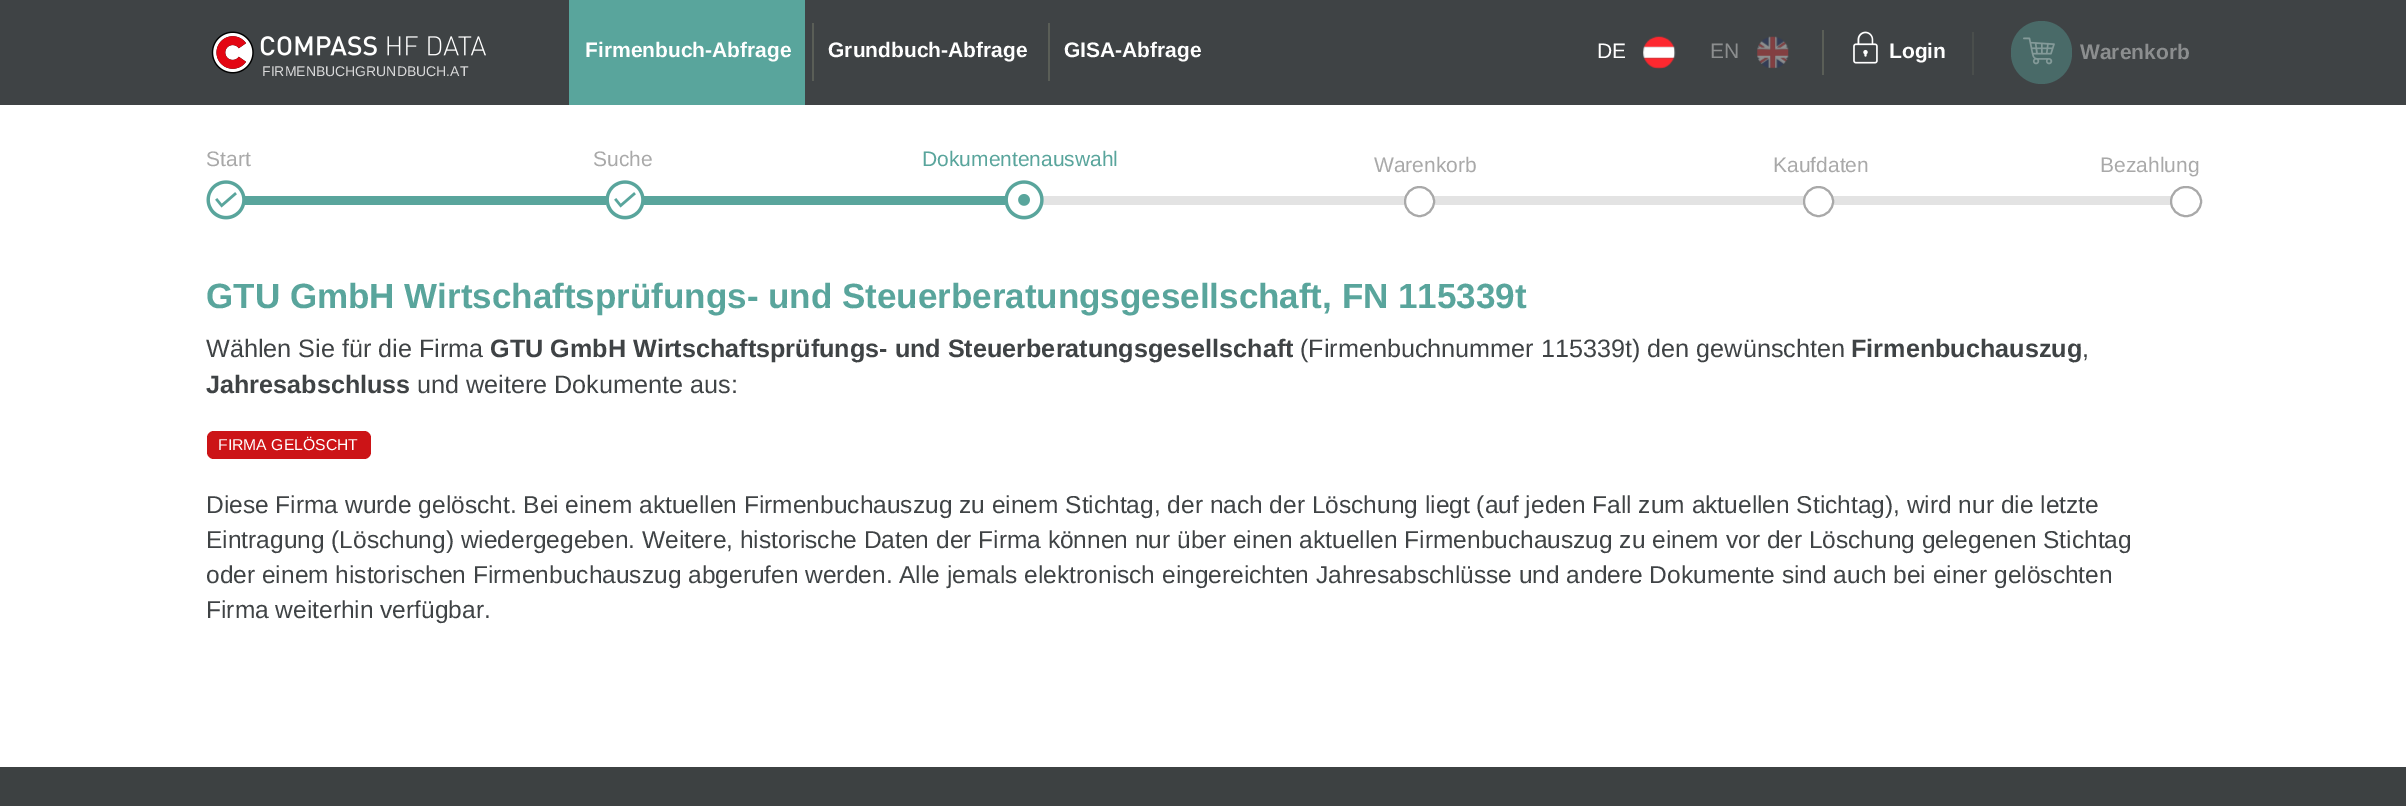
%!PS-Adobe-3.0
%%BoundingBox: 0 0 2406 806
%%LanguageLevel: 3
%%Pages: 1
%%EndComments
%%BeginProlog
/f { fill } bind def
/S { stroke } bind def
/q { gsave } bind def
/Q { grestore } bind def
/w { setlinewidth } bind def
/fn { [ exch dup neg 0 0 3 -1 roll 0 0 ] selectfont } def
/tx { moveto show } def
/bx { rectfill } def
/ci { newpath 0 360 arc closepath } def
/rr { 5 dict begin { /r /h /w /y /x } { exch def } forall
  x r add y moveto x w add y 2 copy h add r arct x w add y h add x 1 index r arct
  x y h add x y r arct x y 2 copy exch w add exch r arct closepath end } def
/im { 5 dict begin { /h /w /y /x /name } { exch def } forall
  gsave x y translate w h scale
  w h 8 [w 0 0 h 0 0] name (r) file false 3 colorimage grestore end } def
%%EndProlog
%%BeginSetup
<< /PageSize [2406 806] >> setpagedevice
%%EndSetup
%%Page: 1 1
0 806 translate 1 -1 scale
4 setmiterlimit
1 setgray
0 0 2406 806 bx
0.247 0.263 0.271 setrgbcolor
0 0 2406 105 bx
0.349 0.647 0.612 setrgbcolor
569 0 236 105 bx
/LiberationSans-Bold 21 fn
1 setgray
(Firmenbuch-Abfrage) 585 57 tx
0.353 0.369 0.341 setrgbcolor
812 23 2 58 bx
1 setgray
(Grundbuch-Abfrage) 828 57 tx
0.353 0.369 0.341 setrgbcolor
1048 23 2 58 bx
1 setgray
(GISA-Abfrage) 1064 57 tx
/LiberationSans-Regular 21 fn
(DE) 1597 58 tx
(image0.raw) 1643 36 33 33 im
0.549 0.557 0.561 setrgbcolor
(EN) 1710 58 tx
(image1.raw) 1757 36 32 33 im
0.353 0.369 0.341 setrgbcolor
1822 30 2 45 bx
(image2.raw) 1853 31 25 33 im
/LiberationSans-Bold 21 fn
1 setgray
(Login) 1889 58 tx
0.29 0.306 0.298 setrgbcolor
1972 32 2 43 bx
0.286 0.416 0.408 setrgbcolor
2011 21 61 63 30.5 rr f
(image3.raw) 2023 37 32 28 im
0.549 0.557 0.561 setrgbcolor
(Warenkorb) 2080 59 tx
(image4.raw) 211 31 275 43 im
/LiberationSans-Regular 14 fn
0.851 0.851 0.855 setrgbcolor
(FIRMENBUCHGRUNDBUCH.AT) 262 76 tx
/LiberationSans-Regular 21 fn
0.663 setgray
(Start) 206 166 tx
0.349 0.647 0.612 setrgbcolor
245 196 760 9 bx
(image5.raw) 206 180 40 40 im
0.663 setgray
(Suche) 593 166 tx
1 setgray
606 196 38 9 bx
(image6.raw) 605 180 40 40 im
0.349 0.647 0.612 setrgbcolor
(Dokumentenauswahl) 922 166 tx
0.89 setgray
1043 196 1128 9 bx
(image7.raw) 1004 180 40 40 im
0.663 setgray
(Warenkorb) 1374 172 tx
1 setgray
1419.5 201.5 14.5 ci q f Q
0.663 setgray
2 w
S
(Kaufdaten) 1773 172 tx
1 setgray
1818.5 201.5 14.5 ci q f Q
0.663 setgray
S
(Bezahlung) 2100 172 tx
1 setgray
2171 187 30 29 14.5 rr q f Q
0.663 setgray
S
/LiberationSans-Bold 35 fn
0.349 0.647 0.612 setrgbcolor
(GTU GmbH Wirtschaftsprüfungs- und Steuerberatungsgesellschaft, FN 115339t) 206 308 tx
/LiberationSans-Regular 25.2 fn
0.247 0.263 0.271 setrgbcolor
(Wählen Sie für die Firma) 206 357 tx
/LiberationSans-Bold 25.2 fn
(GTU GmbH Wirtschaftsprüfungs- und Steuerberatungsgesellschaft) 490 357 tx
/LiberationSans-Regular 25.2 fn
(\(Firmenbuchnummer 115339t\) den gewünschten) 1300 357 tx
/LiberationSans-Bold 25.2 fn
(Firmenbuchauszug) 1851 357 tx
/LiberationSans-Regular 25.2 fn
(,) 2082 357 tx
/LiberationSans-Bold 25.2 fn
(Jahresabschluss) 206 393 tx
/LiberationSans-Regular 25.2 fn
(und weitere Dokumente aus:) 417 393 tx
0.8 0.078 0.09 setrgbcolor
207 431 164 28 7 rr f
/LiberationSans-Regular 15.75 fn
1 setgray
(FIRMA GELÖSCHT) 218 450 tx
/LiberationSans-Regular 24.5 fn
0.247 0.263 0.271 setrgbcolor
(Diese Firma wurde gelöscht. Bei einem aktuellen Firmenbuchauszug zu einem Stichtag, der nach der Löschung liegt \(auf jeden Fall zum aktuellen Stichtag\), wird nur die letzte) 206 513 tx
(Eintragung \(Löschung\) wiedergegeben. Weitere, historische Daten der Firma können nur über einen aktuellen Firmenbuchauszug zu einem vor der Löschung gelegenen Stichtag) 206 548 tx
(oder einem historischen Firmenbuchauszug abgerufen werden. Alle jemals elektronisch eingereichten Jahresabschlüsse und andere Dokumente sind auch bei einer gelöschten) 206 583 tx
(Firma weiterhin verfügbar.) 206 618 tx
0.239 0.255 0.259 setrgbcolor
0 767 2406 39 bx
showpage
%%EOF
